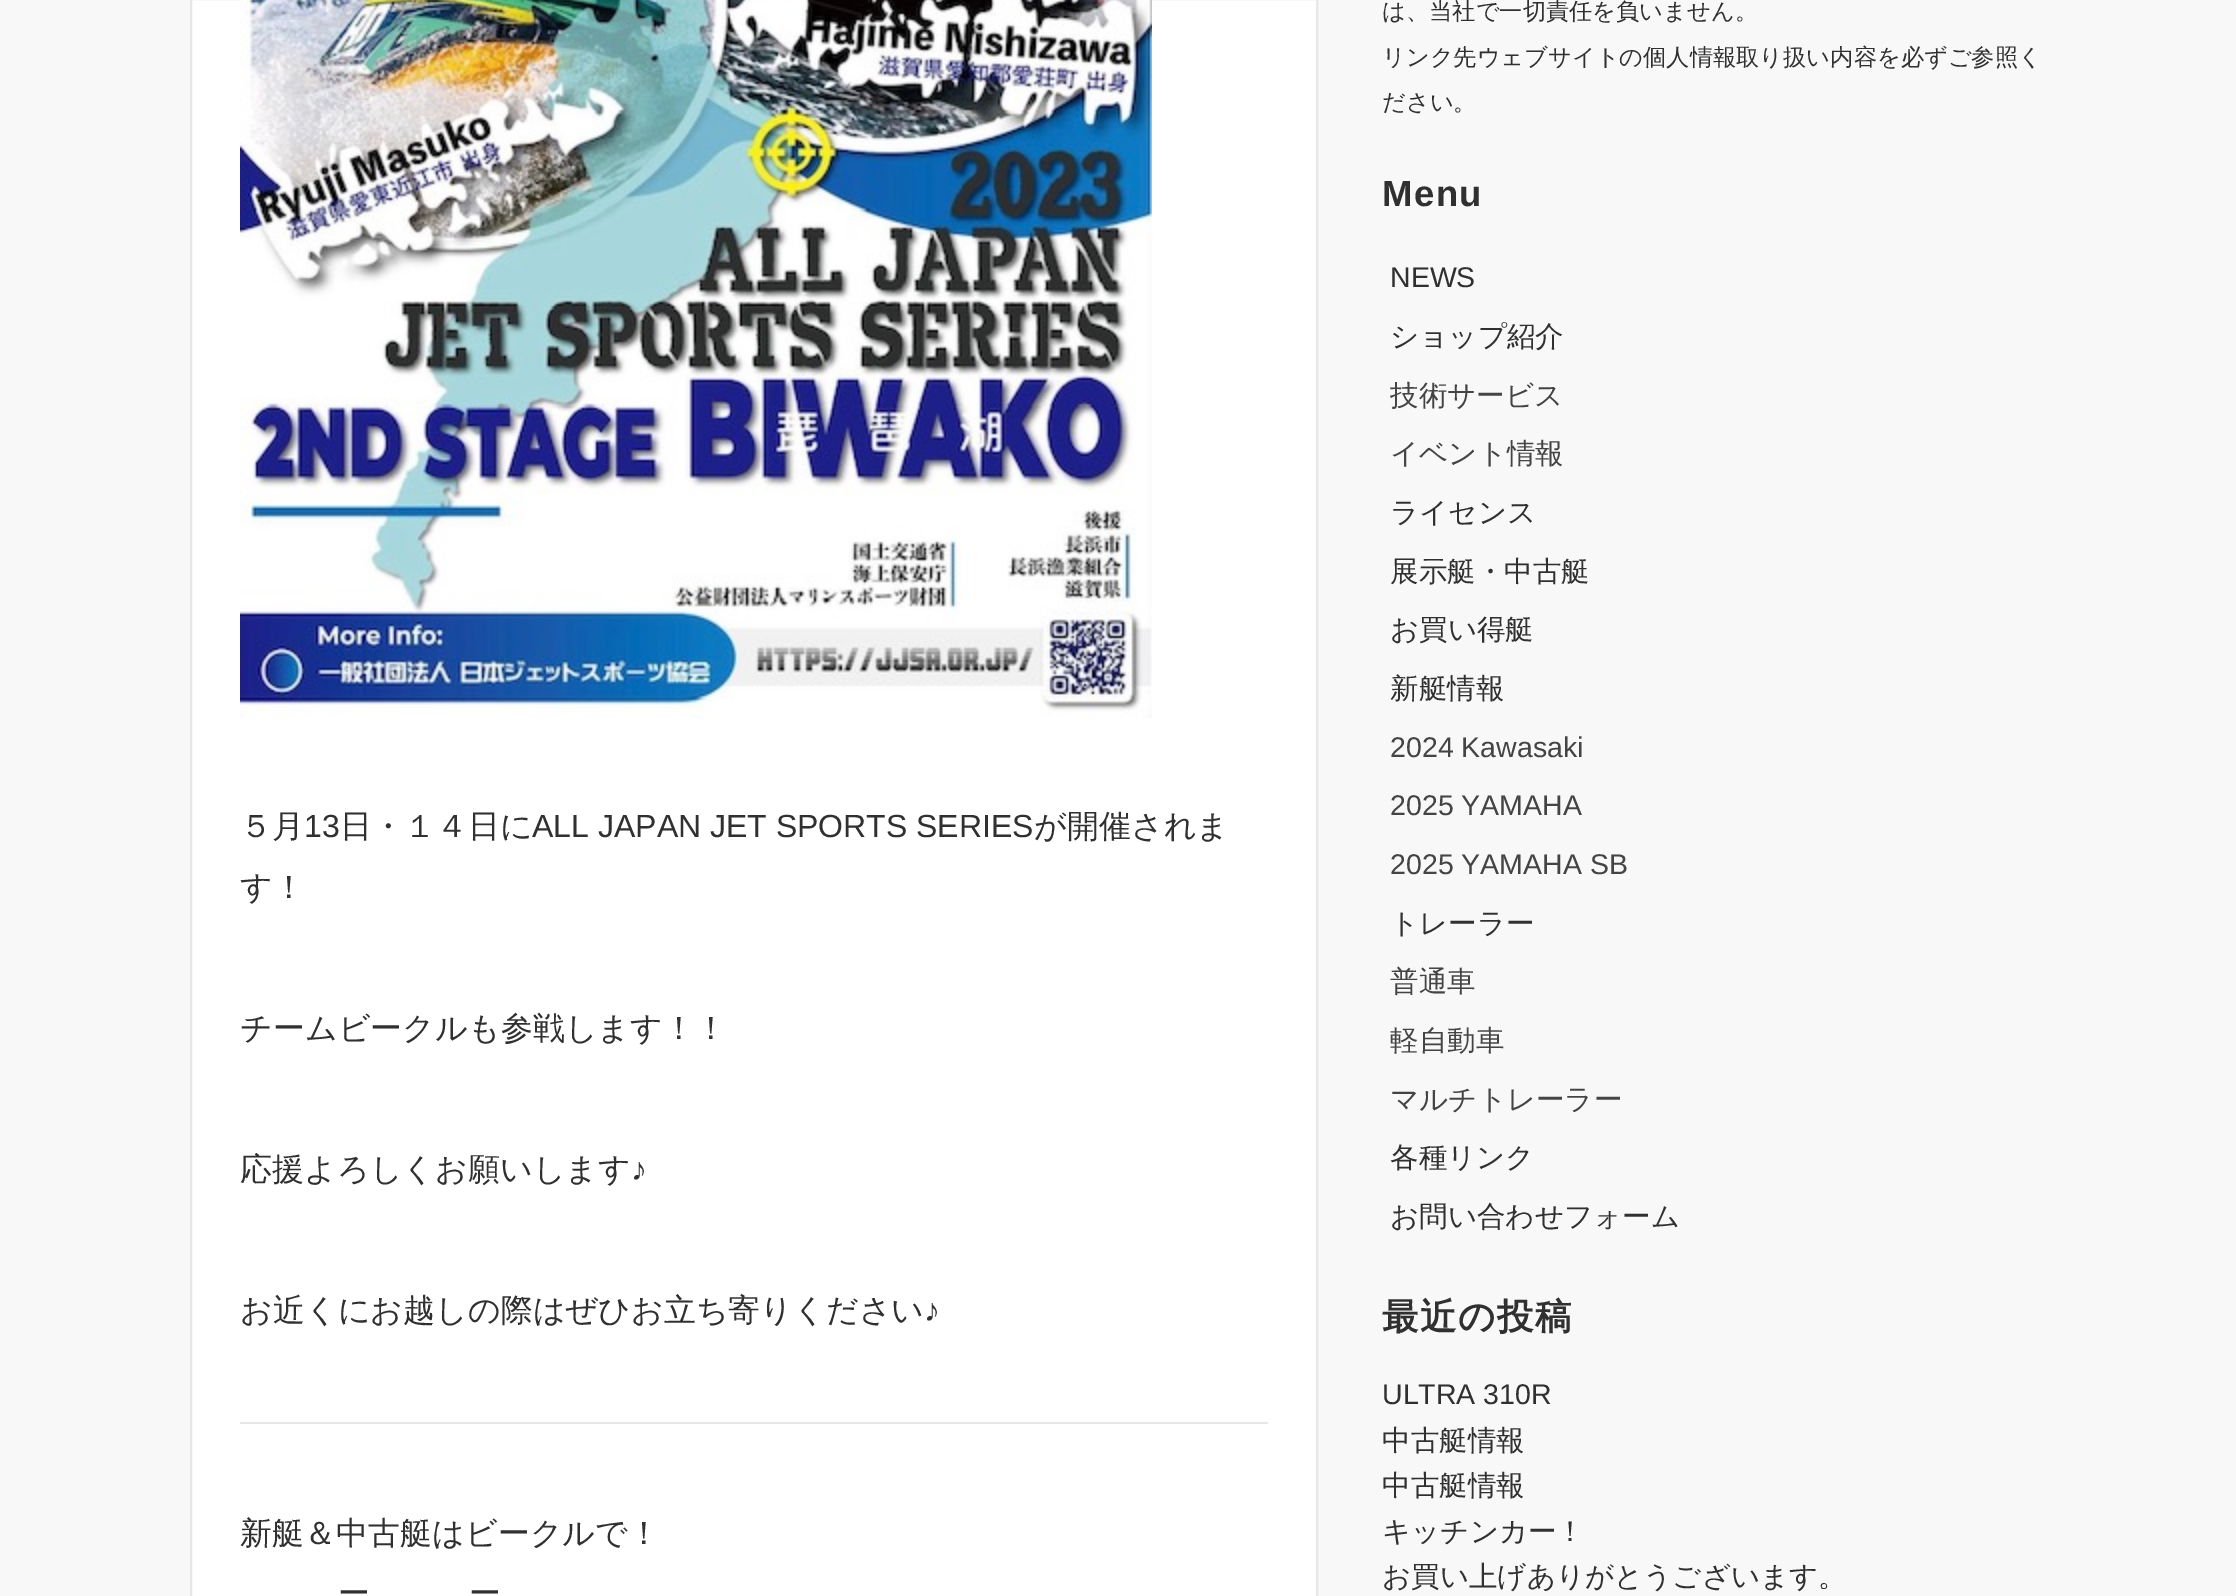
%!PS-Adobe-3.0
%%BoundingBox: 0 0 2236 1596
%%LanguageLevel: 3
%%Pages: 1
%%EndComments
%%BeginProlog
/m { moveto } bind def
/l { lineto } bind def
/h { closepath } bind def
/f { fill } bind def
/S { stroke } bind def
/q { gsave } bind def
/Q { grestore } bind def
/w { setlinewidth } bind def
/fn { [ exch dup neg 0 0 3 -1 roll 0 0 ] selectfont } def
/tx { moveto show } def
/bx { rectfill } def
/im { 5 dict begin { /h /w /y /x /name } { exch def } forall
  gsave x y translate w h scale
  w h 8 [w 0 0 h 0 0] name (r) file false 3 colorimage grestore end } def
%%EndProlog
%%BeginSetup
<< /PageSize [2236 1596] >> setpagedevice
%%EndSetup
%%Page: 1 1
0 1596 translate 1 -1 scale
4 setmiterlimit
0.973 setgray
0 0 2236 1596 bx
1 setgray
191 -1 m 1317 -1 l 1317 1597 l 191 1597 l h q f Q
0.898 0.906 0.91 setrgbcolor
2 w
S
(image0.raw) 240 0 912 718 im
/WenQuanYiZenHei-Medium 32 fn
0.188 setgray
(５月) 240 837 tx
/LiberationSans-Regular 32 fn
(13) 304 837 tx
/WenQuanYiZenHei-Medium 32 fn
(日・１４日に) 340 837 tx
/LiberationSans-Regular 32 fn
(ALL JAPAN JET SPORTS SERIES) 532 837 tx
/WenQuanYiZenHei-Medium 32 fn
(が開催されま) 1034 837 tx
(す！) 240 898 tx
(チームビークルも参戦します！！) 240 1039 tx
(応援よろしくお願いします) 240 1180 tx
/LiberationSans-Regular 32 fn
(♪) 631 1180 tx
/WenQuanYiZenHei-Medium 32 fn
(お近くにお越しの際はぜひお立ち寄りください) 240 1321 tx
/LiberationSans-Regular 32 fn
(♪) 924 1321 tx
0.898 0.906 0.91 setrgbcolor
240 1422 1028 2 bx
/WenQuanYiZenHei-Medium 32 fn
0.188 setgray
(新艇＆中古艇はビークルで！) 240 1544 tx
(ー) 338 1604 tx
(ー) 469 1604 tx
/WenQuanYiZenHei-Medium 23.25 fn
(は、当社で一切責任を負いません。) 1382 19 tx
(リンク先ウェブサイトの個人情報取り扱い内容を必ずご参照く) 1382 65 tx
(ださい。) 1382 110 tx
/LiberationSans-Bold 36.5 fn
1382 206 m 1.5 0 (Menu) ashow
/LiberationSans-Regular 28.5 fn
(NEWS) 1390 287 tx
/WenQuanYiZenHei-Medium 28.5 fn
(ショップ紹介) 1390 346 tx
0.267 setgray
(技術サービス) 1390 405 tx
(イベント情報) 1390 463 tx
0.188 setgray
(ライセンス) 1390 522 tx
(展示艇・中古艇) 1390 581 tx
(お買い得艇) 1390 639 tx
(新艇情報) 1390 698 tx
/LiberationSans-Regular 28.5 fn
0.267 setgray
(2024 Kawasaki) 1390 757 tx
(2025 YAMAHA) 1390 815 tx
(2025 YAMAHA SB) 1390 874 tx
/WenQuanYiZenHei-Medium 28.5 fn
0.188 setgray
(トレーラー) 1390 933 tx
0.267 setgray
(普通車) 1390 991 tx
(軽自動車) 1390 1050 tx
(マルチトレーラー) 1390 1109 tx
0.188 setgray
(各種リンク) 1390 1167 tx
(お問い合わせフォーム) 1390 1226 tx
/WenQuanYiZenHei-Bold 36.5 fn
1382 1329 m 1.5 0 (最近の投稿) ashow
/LiberationSans-Regular 28.5 fn
(ULTRA 310R) 1382 1404 tx
/WenQuanYiZenHei-Medium 28.5 fn
(中古艇情報) 1382 1450 tx
(中古艇情報) 1382 1495 tx
(キッチンカー！) 1382 1541 tx
(お買い上げありがとうございます。) 1382 1586 tx
showpage
%%EOF
